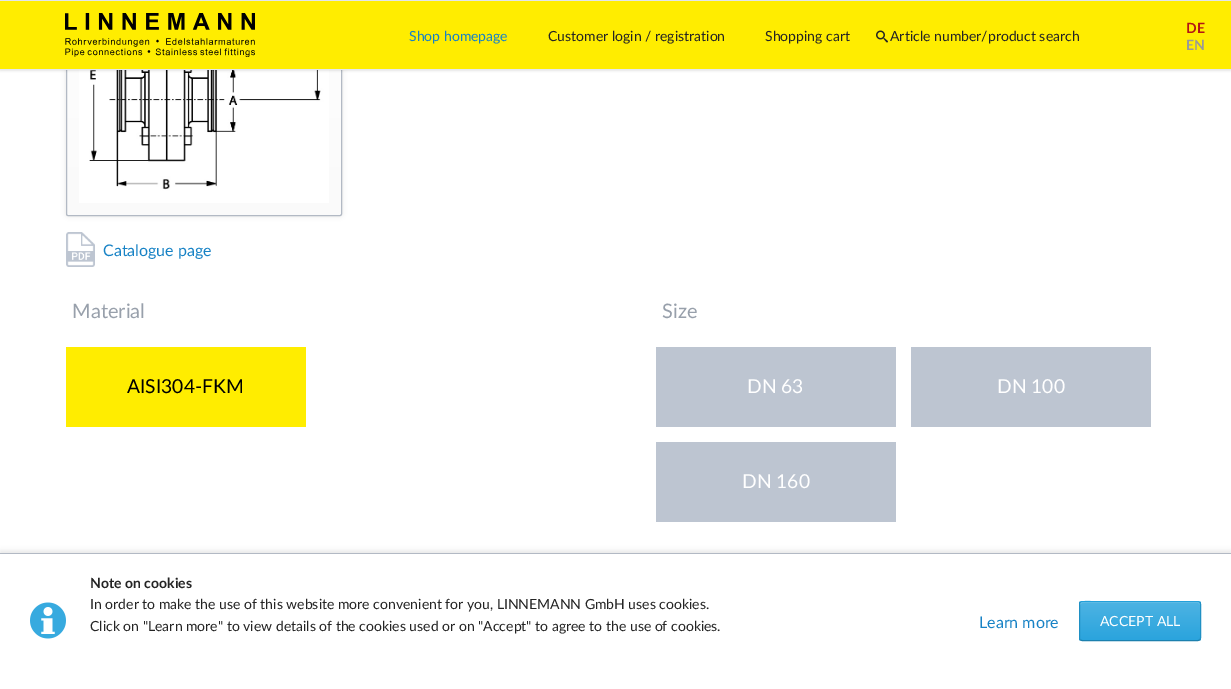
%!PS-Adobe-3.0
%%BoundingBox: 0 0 1231 689
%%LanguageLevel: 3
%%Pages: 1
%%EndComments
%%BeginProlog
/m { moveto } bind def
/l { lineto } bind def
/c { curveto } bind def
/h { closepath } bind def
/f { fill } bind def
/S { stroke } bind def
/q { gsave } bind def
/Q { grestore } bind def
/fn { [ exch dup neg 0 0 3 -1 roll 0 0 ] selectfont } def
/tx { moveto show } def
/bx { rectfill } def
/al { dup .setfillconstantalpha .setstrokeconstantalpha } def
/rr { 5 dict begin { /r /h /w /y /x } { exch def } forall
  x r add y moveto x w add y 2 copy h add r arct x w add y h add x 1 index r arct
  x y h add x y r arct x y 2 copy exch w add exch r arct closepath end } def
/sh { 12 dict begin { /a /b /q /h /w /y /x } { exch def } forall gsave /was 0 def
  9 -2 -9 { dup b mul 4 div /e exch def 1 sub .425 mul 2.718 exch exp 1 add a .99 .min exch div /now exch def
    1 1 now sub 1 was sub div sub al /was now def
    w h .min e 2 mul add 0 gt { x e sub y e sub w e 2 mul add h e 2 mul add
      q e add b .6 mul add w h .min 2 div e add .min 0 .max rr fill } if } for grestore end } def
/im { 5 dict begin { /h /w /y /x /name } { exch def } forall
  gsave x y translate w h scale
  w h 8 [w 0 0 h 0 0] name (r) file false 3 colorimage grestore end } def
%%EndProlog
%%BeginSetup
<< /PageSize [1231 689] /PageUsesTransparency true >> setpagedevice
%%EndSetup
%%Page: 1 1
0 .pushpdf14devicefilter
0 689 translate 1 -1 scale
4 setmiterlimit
1 setgray
0 0 1231 689 bx
0 setgray
66 -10 276 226 2 2.5 0.1 sh
q 66 70 m 342 70 l 342 215 l 66 215 l h clip newpath
<< /ShadingType 2 /ColorSpace /DeviceRGB /Coords [204 -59 204 215] /Extend [true true] /Function << /FunctionType 2 /Domain [0 1] /C0 [1 1 1] /C1 [0.98 0.98 0.98] /N 1 >> >> shfill Q
0.698 0.725 0.769 setrgbcolor
66.5 -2.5 275 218 1.5 rr S
0.898 0.91 0.933 setrgbcolor
0 0 1231 1 bx
(image2.raw) 79 70 250 133 im
0 setgray
0 2 1231 69 0 1 0.1 sh
1 0.929 0 setrgbcolor
0 1 1231 68 bx
0.898 0.91 0.933 setrgbcolor
0 69 1231 1 bx
(image0.raw) 65 13 190 44 im
/Lato-Regular 14 fn
0.09 0.51 0.773 setrgbcolor
(Shop homepage) 409 41 tx
0.141 setgray
(Customer login / registration) 548 41 tx
(Shopping cart) 765 41 tx
(image1.raw) 876 30 12 13 im
(Article number/product search) 890 41 tx
/Lato-Bold 14 fn
0.702 0.082 0.082 setrgbcolor
(DE) 1186 33 tx
0.6 setgray
(EN) 1186 50 tx
(image3.raw) 66 232 29 35 im
/Lato-Regular 16 fn
0.09 0.51 0.773 setrgbcolor
(Catalogue page) 103 256 tx
/Lato-Regular 20 fn
0.596 0.627 0.671 setrgbcolor
(Material) 72 318 tx
1 0.929 0 setrgbcolor
66 347 240 80 bx
/Lato-Regular 19.25 fn
0 setgray
(AISI304-FKM) 127 393 tx
/Lato-Regular 20 fn
0.596 0.627 0.671 setrgbcolor
(Size) 662 318 tx
0.741 0.773 0.82 setrgbcolor
656 347 240 80 bx
/Lato-Regular 19.25 fn
1 setgray
(DN 63) 747 393 tx
0.741 0.773 0.82 setrgbcolor
911 347 240 80 bx
1 setgray
(DN 100) 997 393 tx
0.741 0.773 0.82 setrgbcolor
656 442 240 80 bx
1 setgray
(DN 160) 742 488 tx
0 setgray
0 551 1231 136 0 2.5 0.1 sh
1 setgray
0 554 1231 135 bx
0.698 0.725 0.769 setrgbcolor
0 553 1231 1 bx
(image4.raw) 30 602 36 37 im
/Lato-Bold 14 fn
0.141 setgray
(Note on cookies) 90 588 tx
/Lato-Regular 14 fn
(In order to make the use of this website more convenient for you, LINNEMANN GmbH uses cookies.) 90 609 tx
(Click on "Learn more" to view details of the cookies used or on "Accept" to agree to the use of cookies.) 90 631 tx
/Lato-Regular 16 fn
0.09 0.51 0.773 setrgbcolor
(Learn more) 979 628 tx
q
1079 601 122 40 3 rr clip newpath
q 1079 602 m 1201 602 l 1201 640 l 1079 640 l h clip newpath
<< /ShadingType 2 /ColorSpace /DeviceRGB /Coords [1140 602 1140 640] /Extend [true true] /Function << /FunctionType 2 /Domain [0 1] /C0 [0.302 0.702 0.89] /C1 [0.165 0.643 0.867] /N 1 >> >> shfill Q
Q
0.451 0.765 0.91 setrgbcolor
1082 603 m 1198 603 l 1199 603 1200 604 1200 605 c 1200 604 1200 603 1199 602 c 1101 602 l 1095 602 1080 598 1080 605 c 1080 604 1081 603 1082 603 c h f
0.137 0.627 0.855 setrgbcolor
1080 602 m 1082 601.5 l 1178.5 601.5 l 1198 601.5 l 1200 602 l S
0.122 0.565 0.769 setrgbcolor
1200 602 m 1200.5 604 l 1200.5 638 l 1200 640 l S
0.11 0.502 0.682 setrgbcolor
1200 640 m 1198 640.5 l 1101.5 640.5 l 1082 640.5 l 1080 640 l S
0.122 0.565 0.769 setrgbcolor
1080 640 m 1079.5 638 l 1079.5 604 l 1080 602 l S
/Lato-Regular 14 fn
1 setgray
(ACCEPT ALL) 1100 626 tx
.poppdf14devicefilter showpage
%%EOF
